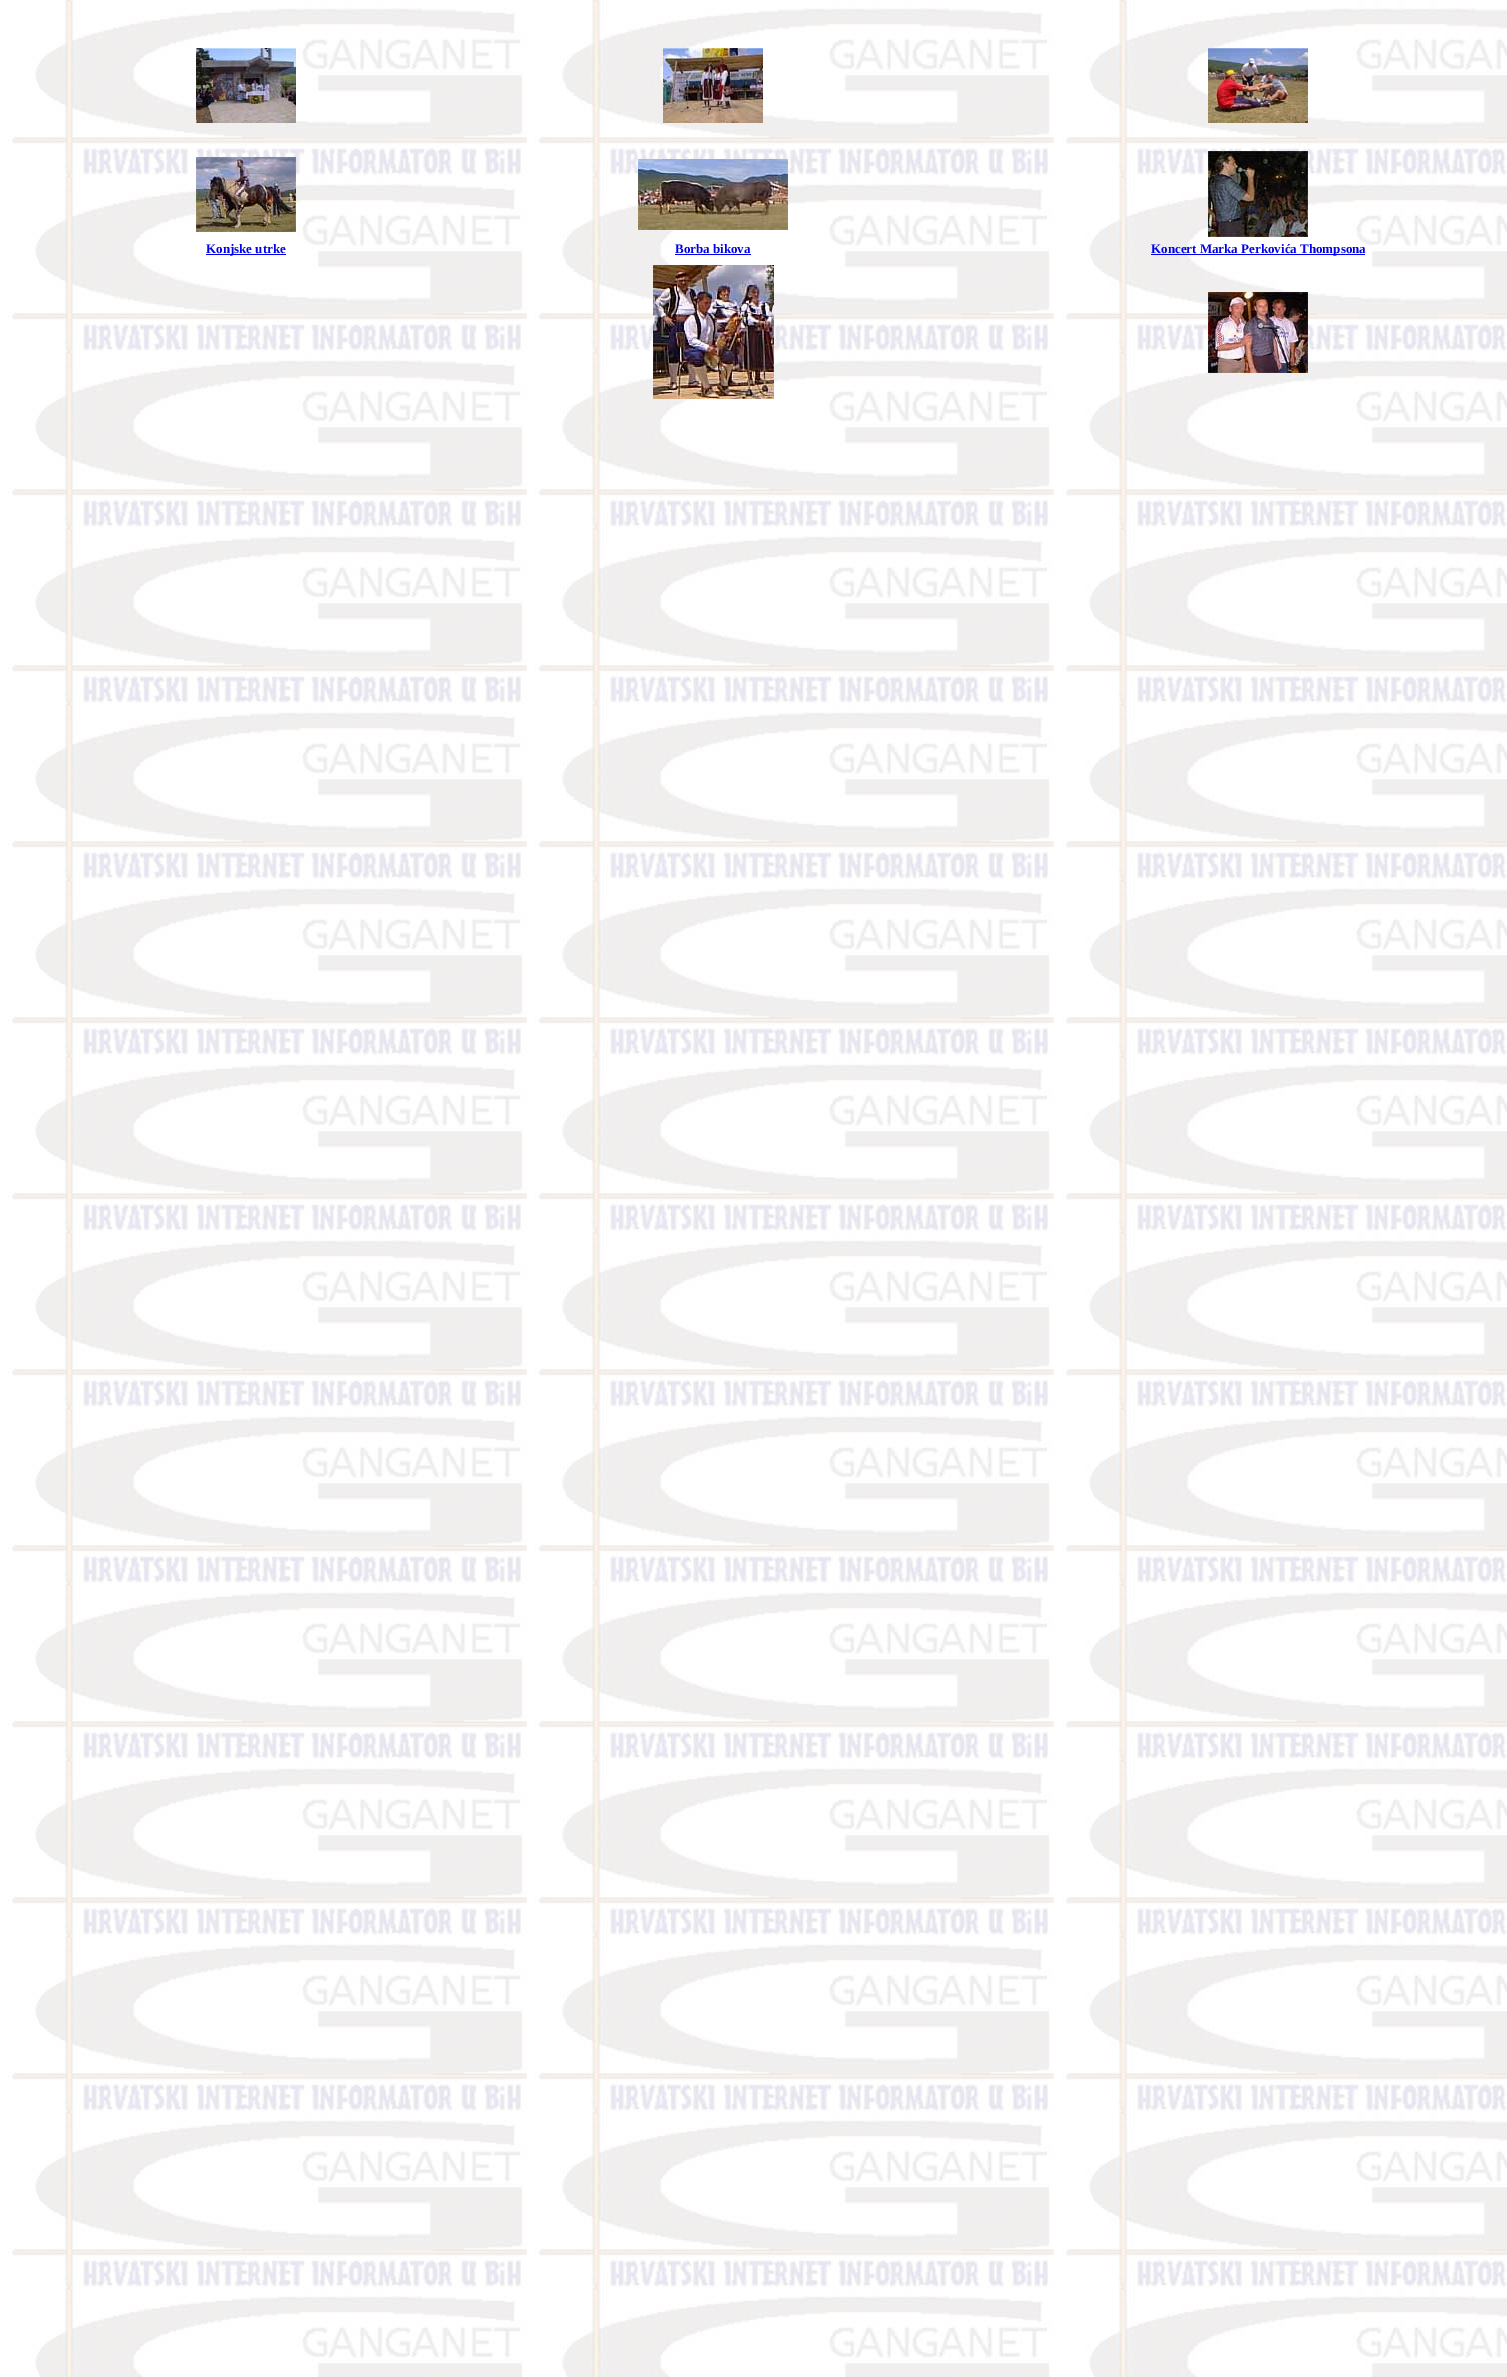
%!PS-Adobe-3.0
%%BoundingBox: 0 0 1507 2377
%%LanguageLevel: 3
%%Pages: 1
%%EndComments
%%BeginProlog
/fn { [ exch dup neg 0 0 3 -1 roll 0 0 ] selectfont } def
/tx { moveto show } def
/bx { rectfill } def
/im { 5 dict begin { /h /w /y /x /name } { exch def } forall
  gsave x y translate w h scale
  w h 8 [w 0 0 h 0 0] name (r) file false 3 colorimage grestore end } def
%%EndProlog
%%BeginSetup
<< /PageSize [1507 2377] >> setpagedevice
%%EndSetup
%%Page: 1 1
0 2377 translate 1 -1 scale
4 setmiterlimit
1 setgray
0 0 1507 2377 bx
(image0.raw) 8 0 1499 2377 im
(image1.raw) 196 48 100 75 im
(image2.raw) 663 48 100 75 im
(image3.raw) 1208 48 100 75 im
(image4.raw) 196 157 100 75 im
(image5.raw) 638 159 150 71 im
(image6.raw) 1208 151 100 86 im
0 0 0.933 setrgbcolor
206 254 80 1 bx
/LiberationSerif-Bold 13 fn
(Konjske utrke) 206 253 tx
(Borba bikova) 675 253 tx
675 254 76 1 bx
1151 254 214 1 bx
(Koncert Marka Perkovića Thompsona) 1151 253 tx
(image7.raw) 653 265 121 134 im
(image8.raw) 1208 292 100 81 im
showpage
%%EOF
